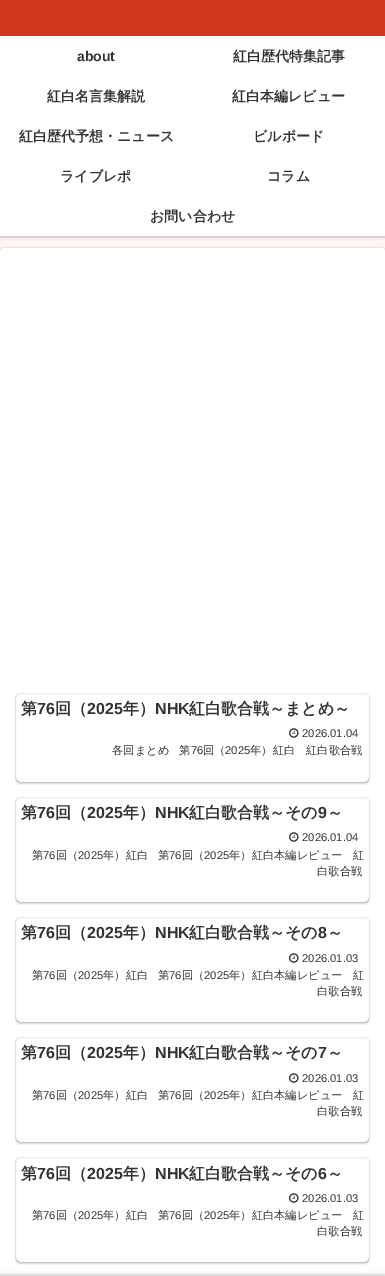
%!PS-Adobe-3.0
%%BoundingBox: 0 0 385 1276
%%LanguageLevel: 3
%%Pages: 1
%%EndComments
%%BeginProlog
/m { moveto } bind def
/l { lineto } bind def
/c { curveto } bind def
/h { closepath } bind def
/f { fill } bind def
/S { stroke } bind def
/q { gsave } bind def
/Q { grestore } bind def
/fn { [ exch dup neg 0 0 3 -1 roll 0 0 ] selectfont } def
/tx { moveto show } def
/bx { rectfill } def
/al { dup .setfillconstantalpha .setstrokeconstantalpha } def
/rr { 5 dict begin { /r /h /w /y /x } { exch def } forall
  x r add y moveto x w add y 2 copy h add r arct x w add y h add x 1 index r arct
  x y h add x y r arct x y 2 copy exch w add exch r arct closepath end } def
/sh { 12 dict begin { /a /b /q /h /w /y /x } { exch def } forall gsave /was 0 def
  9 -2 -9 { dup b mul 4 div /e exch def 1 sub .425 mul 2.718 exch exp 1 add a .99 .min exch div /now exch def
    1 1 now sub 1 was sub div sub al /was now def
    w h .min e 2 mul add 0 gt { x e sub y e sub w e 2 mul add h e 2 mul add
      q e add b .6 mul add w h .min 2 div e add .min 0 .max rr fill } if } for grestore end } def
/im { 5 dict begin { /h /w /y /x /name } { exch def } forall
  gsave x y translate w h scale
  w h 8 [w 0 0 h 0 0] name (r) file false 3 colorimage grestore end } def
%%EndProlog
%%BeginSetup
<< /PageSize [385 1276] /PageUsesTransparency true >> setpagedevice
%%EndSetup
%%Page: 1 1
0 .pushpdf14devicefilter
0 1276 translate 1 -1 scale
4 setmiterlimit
0.996 0.957 0.957 setrgbcolor
0 0 385 1276 bx
1 setgray
0 36 385 200 bx
0.827 0.22 0.11 setrgbcolor
0 0 385 36 bx
q
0 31 m 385 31 l 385 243 l 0 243 l h 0 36 m 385 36 l 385 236 l 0 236 l h eoclip newpath
0 setgray
0 37 385 200 0 1.5 0.25 sh
Q
/LiberationSans-Bold 14 fn
0.2 setgray
(about) 77 61 tx
/WenQuanYiZenHei-Bold 14 fn
(紅白歴代特集記事) 233 61 tx
(紅白名言集解説) 47 101 tx
(紅白本編レビュー) 232 101 tx
(紅白歴代予想・ニュース) 19 141 tx
(ビルボード) 253 141 tx
(ライブレポ) 60 181 tx
(コラム) 267 181 tx
(お問い合わせ) 150 221 tx
0.918 0.878 0.878 setrgbcolor
-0.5 247.5 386 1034 4.5 rr S
1 setgray
0 248 385 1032 4 rr f
0.922 setgray
15.5 693.5 354 89 4.5 rr S
q
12 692 m 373 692 l 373 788 l 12 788 l h 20 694 m 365 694 l 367 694 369 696 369 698 c 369 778 l 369 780 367 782 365 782 c 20 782 l 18 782 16 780 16 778 c 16 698 l 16 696 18 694 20 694 c h eoclip newpath
0 setgray
16 696 353 88 4 1 0.16 sh
Q
/WenQuanYiZenHei-Bold 16 fn
0.2 setgray
(第) 21 714 tx
/LiberationSans-Bold 16 fn
(76) 37 714 tx
/WenQuanYiZenHei-Bold 16 fn
(回（) 55 714 tx
/LiberationSans-Bold 16 fn
(2025) 87 714 tx
/WenQuanYiZenHei-Bold 16 fn
(年）) 123 714 tx
/LiberationSans-Bold 16 fn
(NHK) 155 714 tx
/WenQuanYiZenHei-Bold 16 fn
(紅白歌合戦～まとめ～) 189 714 tx
(image0.raw) 289 728 10 10 im
/LiberationSans-Regular 11.25 fn
(2026.01.04) 302 737 tx
/WenQuanYiZenHei-Medium 11.25 fn
(各回まとめ) 112 754 tx
(第) 179 754 tx
/LiberationSans-Regular 11.25 fn
(76) 191 754 tx
/WenQuanYiZenHei-Medium 11.25 fn
(回（) 203 754 tx
/LiberationSans-Regular 11.25 fn
(2025) 225 754 tx
/WenQuanYiZenHei-Medium 11.25 fn
(年）紅白) 250 754 tx
(紅白歌合戦) 306 754 tx
0.922 setgray
15.5 797.5 354 105 4.5 rr S
q
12 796 m 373 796 l 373 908 l 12 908 l h 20 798 m 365 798 l 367 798 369 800 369 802 c 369 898 l 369 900 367 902 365 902 c 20 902 l 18 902 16 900 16 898 c 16 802 l 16 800 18 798 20 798 c h eoclip newpath
0 setgray
16 800 353 104 4 1 0.16 sh
Q
/WenQuanYiZenHei-Bold 16 fn
0.2 setgray
(第) 21 818 tx
/LiberationSans-Bold 16 fn
(76) 37 818 tx
/WenQuanYiZenHei-Bold 16 fn
(回（) 55 818 tx
/LiberationSans-Bold 16 fn
(2025) 87 818 tx
/WenQuanYiZenHei-Bold 16 fn
(年）) 123 818 tx
/LiberationSans-Bold 16 fn
(NHK) 155 818 tx
/WenQuanYiZenHei-Bold 16 fn
(紅白歌合戦～その) 189 818 tx
/LiberationSans-Bold 16 fn
(9) 318 818 tx
/WenQuanYiZenHei-Bold 16 fn
(～) 327 818 tx
(image0.raw) 289 832 10 10 im
/LiberationSans-Regular 11.25 fn
(2026.01.04) 302 841 tx
/WenQuanYiZenHei-Medium 11.25 fn
(第) 32 859 tx
/LiberationSans-Regular 11.25 fn
(76) 43 859 tx
/WenQuanYiZenHei-Medium 11.25 fn
(回（) 56 859 tx
/LiberationSans-Regular 11.25 fn
(2025) 78 859 tx
/WenQuanYiZenHei-Medium 11.25 fn
(年）紅白) 103 859 tx
(第) 158 859 tx
/LiberationSans-Regular 11.25 fn
(76) 169 859 tx
/WenQuanYiZenHei-Medium 11.25 fn
(回（) 182 859 tx
/LiberationSans-Regular 11.25 fn
(2025) 204 859 tx
/WenQuanYiZenHei-Medium 11.25 fn
(年）紅白本編レビュー) 229 859 tx
(紅) 353 859 tx
(白歌合戦) 317 875 tx
0.922 setgray
15.5 917.5 354 105 4.5 rr S
q
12 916 m 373 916 l 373 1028 l 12 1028 l h 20 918 m 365 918 l 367 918 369 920 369 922 c 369 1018 l 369 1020 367 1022 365 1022 c 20 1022 l 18 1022 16 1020 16 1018 c 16 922 l 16 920 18 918 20 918 c h eoclip newpath
0 setgray
16 920 353 104 4 1 0.16 sh
Q
/WenQuanYiZenHei-Bold 16 fn
0.2 setgray
(第) 21 938 tx
/LiberationSans-Bold 16 fn
(76) 37 938 tx
/WenQuanYiZenHei-Bold 16 fn
(回（) 55 938 tx
/LiberationSans-Bold 16 fn
(2025) 87 938 tx
/WenQuanYiZenHei-Bold 16 fn
(年）) 123 938 tx
/LiberationSans-Bold 16 fn
(NHK) 155 938 tx
/WenQuanYiZenHei-Bold 16 fn
(紅白歌合戦～その) 189 938 tx
/LiberationSans-Bold 16 fn
(8) 318 938 tx
/WenQuanYiZenHei-Bold 16 fn
(～) 327 938 tx
(image0.raw) 289 953 10 10 im
/LiberationSans-Regular 11.25 fn
(2026.01.03) 302 962 tx
/WenQuanYiZenHei-Medium 11.25 fn
(第) 32 979 tx
/LiberationSans-Regular 11.25 fn
(76) 43 979 tx
/WenQuanYiZenHei-Medium 11.25 fn
(回（) 56 979 tx
/LiberationSans-Regular 11.25 fn
(2025) 78 979 tx
/WenQuanYiZenHei-Medium 11.25 fn
(年）紅白) 103 979 tx
(第) 158 979 tx
/LiberationSans-Regular 11.25 fn
(76) 169 979 tx
/WenQuanYiZenHei-Medium 11.25 fn
(回（) 182 979 tx
/LiberationSans-Regular 11.25 fn
(2025) 204 979 tx
/WenQuanYiZenHei-Medium 11.25 fn
(年）紅白本編レビュー) 229 979 tx
(紅) 353 979 tx
(白歌合戦) 317 995 tx
0.922 setgray
15.5 1037.5 354 105 4.5 rr S
q
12 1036 m 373 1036 l 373 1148 l 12 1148 l h 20 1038 m 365 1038 l 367 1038 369 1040 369 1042 c 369 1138 l 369 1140 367 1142 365 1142 c 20 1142 l 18 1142 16 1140 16 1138 c 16 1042 l 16 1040 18 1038 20 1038 c h eoclip newpath
0 setgray
16 1040 353 104 4 1 0.16 sh
Q
/WenQuanYiZenHei-Bold 16 fn
0.2 setgray
(第) 21 1058 tx
/LiberationSans-Bold 16 fn
(76) 37 1058 tx
/WenQuanYiZenHei-Bold 16 fn
(回（) 55 1058 tx
/LiberationSans-Bold 16 fn
(2025) 87 1058 tx
/WenQuanYiZenHei-Bold 16 fn
(年）) 123 1058 tx
/LiberationSans-Bold 16 fn
(NHK) 155 1058 tx
/WenQuanYiZenHei-Bold 16 fn
(紅白歌合戦～その) 189 1058 tx
/LiberationSans-Bold 16 fn
(7) 318 1058 tx
/WenQuanYiZenHei-Bold 16 fn
(～) 327 1058 tx
(image0.raw) 289 1073 10 10 im
/LiberationSans-Regular 11.25 fn
(2026.01.03) 302 1082 tx
/WenQuanYiZenHei-Medium 11.25 fn
(第) 32 1099 tx
/LiberationSans-Regular 11.25 fn
(76) 43 1099 tx
/WenQuanYiZenHei-Medium 11.25 fn
(回（) 56 1099 tx
/LiberationSans-Regular 11.25 fn
(2025) 78 1099 tx
/WenQuanYiZenHei-Medium 11.25 fn
(年）紅白) 103 1099 tx
(第) 158 1099 tx
/LiberationSans-Regular 11.25 fn
(76) 169 1099 tx
/WenQuanYiZenHei-Medium 11.25 fn
(回（) 182 1099 tx
/LiberationSans-Regular 11.25 fn
(2025) 204 1099 tx
/WenQuanYiZenHei-Medium 11.25 fn
(年）紅白本編レビュー) 229 1099 tx
(紅) 353 1099 tx
(白歌合戦) 317 1115 tx
0.922 setgray
15.5 1157.5 354 105 4.5 rr S
q
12 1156 m 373 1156 l 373 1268 l 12 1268 l h 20 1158 m 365 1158 l 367 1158 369 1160 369 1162 c 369 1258 l 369 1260 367 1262 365 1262 c 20 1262 l 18 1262 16 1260 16 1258 c 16 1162 l 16 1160 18 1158 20 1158 c h eoclip newpath
0 setgray
16 1160 353 104 4 1 0.16 sh
Q
/WenQuanYiZenHei-Bold 16 fn
0.2 setgray
(第) 21 1179 tx
/LiberationSans-Bold 16 fn
(76) 37 1179 tx
/WenQuanYiZenHei-Bold 16 fn
(回（) 55 1179 tx
/LiberationSans-Bold 16 fn
(2025) 87 1179 tx
/WenQuanYiZenHei-Bold 16 fn
(年）) 123 1179 tx
/LiberationSans-Bold 16 fn
(NHK) 155 1179 tx
/WenQuanYiZenHei-Bold 16 fn
(紅白歌合戦～その) 189 1179 tx
/LiberationSans-Bold 16 fn
(6) 318 1179 tx
/WenQuanYiZenHei-Bold 16 fn
(～) 327 1179 tx
(image0.raw) 289 1193 10 10 im
/LiberationSans-Regular 11.25 fn
(2026.01.03) 302 1202 tx
/WenQuanYiZenHei-Medium 11.25 fn
(第) 32 1219 tx
/LiberationSans-Regular 11.25 fn
(76) 43 1219 tx
/WenQuanYiZenHei-Medium 11.25 fn
(回（) 56 1219 tx
/LiberationSans-Regular 11.25 fn
(2025) 78 1219 tx
/WenQuanYiZenHei-Medium 11.25 fn
(年）紅白) 103 1219 tx
(第) 158 1219 tx
/LiberationSans-Regular 11.25 fn
(76) 169 1219 tx
/WenQuanYiZenHei-Medium 11.25 fn
(回（) 182 1219 tx
/LiberationSans-Regular 11.25 fn
(2025) 204 1219 tx
/WenQuanYiZenHei-Medium 11.25 fn
(年）紅白本編レビュー) 229 1219 tx
(紅) 353 1219 tx
(白歌合戦) 317 1235 tx
0.663 setgray
0 1276 385 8 0 2.5 1 sh
.poppdf14devicefilter showpage
%%EOF
